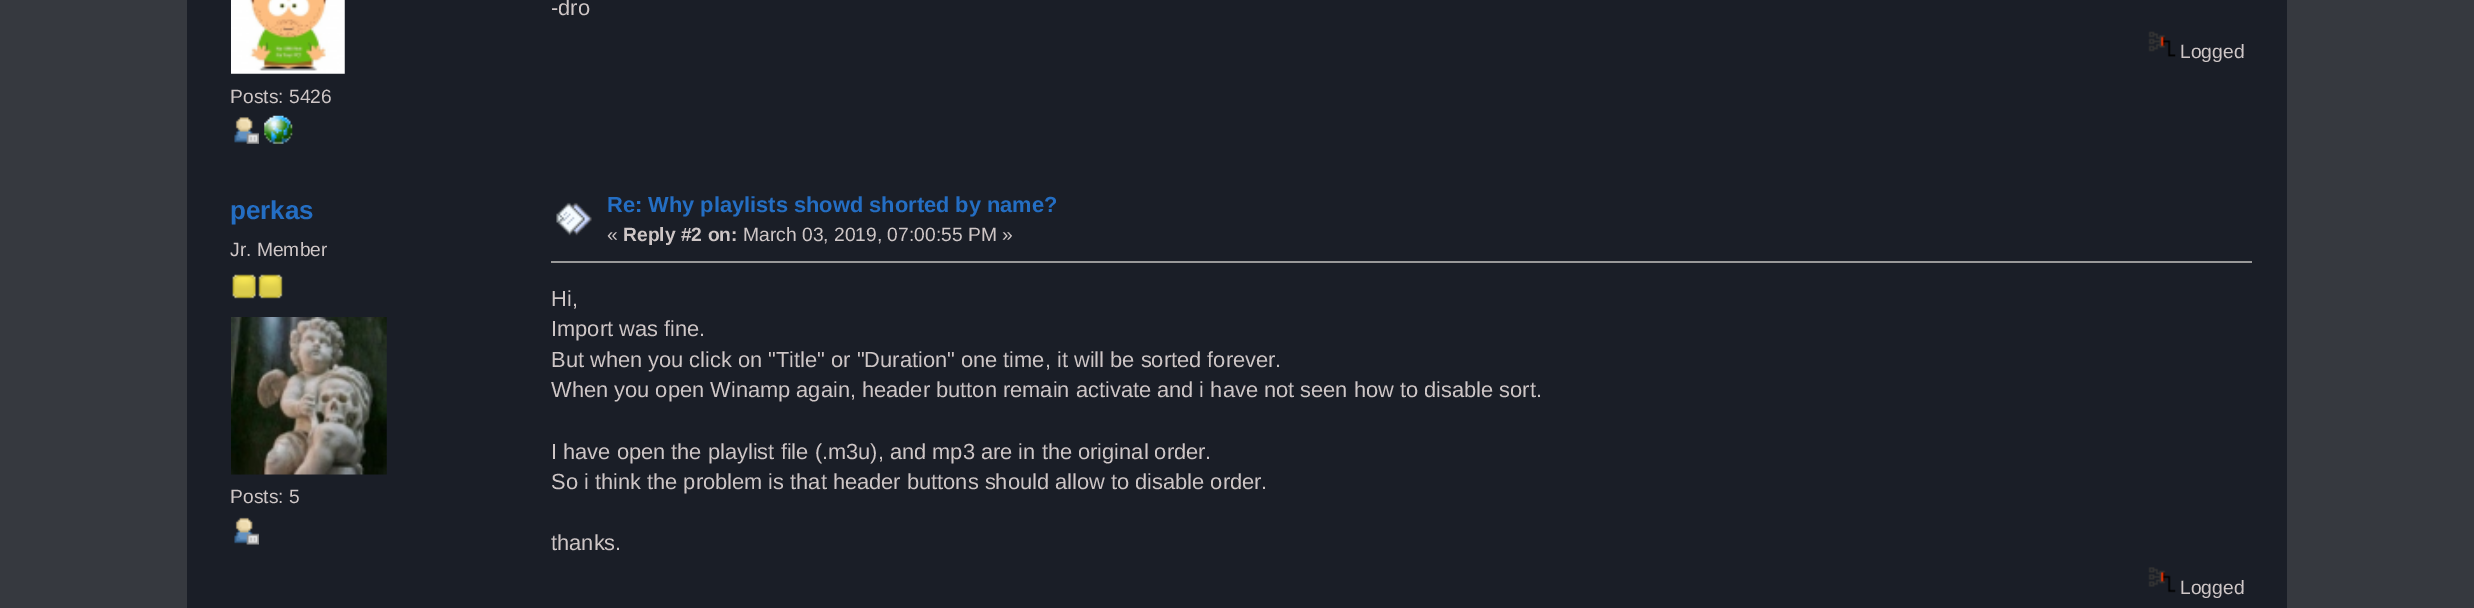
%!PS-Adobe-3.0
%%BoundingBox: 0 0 2474 608
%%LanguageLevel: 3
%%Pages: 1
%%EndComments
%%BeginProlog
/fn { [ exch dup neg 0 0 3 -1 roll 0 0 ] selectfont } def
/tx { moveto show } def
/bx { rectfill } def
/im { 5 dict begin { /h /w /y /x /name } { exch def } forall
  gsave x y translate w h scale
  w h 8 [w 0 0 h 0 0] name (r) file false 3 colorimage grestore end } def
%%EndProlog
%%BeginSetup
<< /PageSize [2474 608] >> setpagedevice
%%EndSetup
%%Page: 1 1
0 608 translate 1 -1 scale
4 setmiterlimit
0.212 0.224 0.247 setrgbcolor
0 0 2474 608 bx
0.102 0.118 0.153 setrgbcolor
187 0 2100 608 bx
/LiberationSans-Regular 21.85 fn
0.808 0.776 0.776 setrgbcolor
(-dro) 551 15 tx
(image0.raw) 2148 31 28 26 im
/LiberationSans-Regular 19.25 fn
(Logged) 2180 58 tx
(image1.raw) 231 0 114 74 im
(Posts: 5426) 230 103 tx
(image2.raw) 234 117 25 27 im
(image3.raw) 264 115 29 29 im
/LiberationSans-Bold 26 fn
0.141 0.431 0.765 setrgbcolor
(perkas) 230 219 tx
/LiberationSans-Regular 19.25 fn
0.808 0.776 0.776 setrgbcolor
(Jr. Member) 230 256 tx
(image4.raw) 232 274 24 25 im
(image5.raw) 258 274 25 25 im
(image6.raw) 231 317 156 158 im
(Posts: 5) 230 503 tx
(image7.raw) 234 517 25 28 im
(image8.raw) 556 202 36 34 im
/LiberationSans-Bold 21.85 fn
0.141 0.431 0.765 setrgbcolor
(Re: Why playlists showd shorted by name?) 607 212 tx
/LiberationSans-Regular 19.25 fn
0.808 0.776 0.776 setrgbcolor
(«) 607 241 tx
/LiberationSans-Bold 19.25 fn
(Reply #2 on:) 623 241 tx
/LiberationSans-Regular 19.25 fn
(March 03, 2019, 07:00:55 PM ») 743 241 tx
0.6 setgray
551 261 1701 2 bx
/LiberationSans-Regular 21.85 fn
0.808 0.776 0.776 setrgbcolor
(Hi,) 551 306 tx
(Import was fine.) 551 336 tx
(But when you click on "Title" or "Duration" one time, it will be sorted forever.) 551 367 tx
(When you open Winamp again, header button remain activate and i have not seen how to disable sort.) 551 397 tx
(I have open the playlist file \(.m3u\), and mp3 are in the original order.) 551 459 tx
(So i think the problem is that header buttons should allow to disable order.) 551 489 tx
(thanks.) 551 550 tx
(image9.raw) 2148 567 28 26 im
/LiberationSans-Regular 19.25 fn
(Logged) 2180 594 tx
showpage
%%EOF
